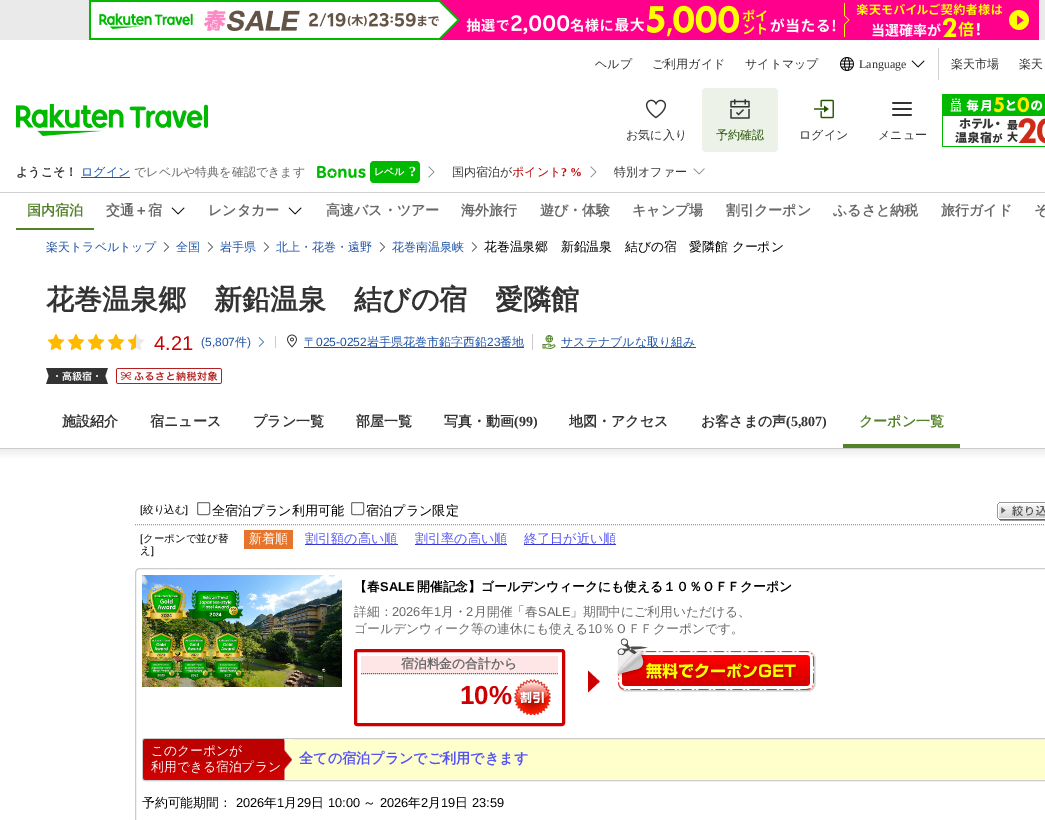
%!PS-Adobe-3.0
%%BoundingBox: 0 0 1045 820
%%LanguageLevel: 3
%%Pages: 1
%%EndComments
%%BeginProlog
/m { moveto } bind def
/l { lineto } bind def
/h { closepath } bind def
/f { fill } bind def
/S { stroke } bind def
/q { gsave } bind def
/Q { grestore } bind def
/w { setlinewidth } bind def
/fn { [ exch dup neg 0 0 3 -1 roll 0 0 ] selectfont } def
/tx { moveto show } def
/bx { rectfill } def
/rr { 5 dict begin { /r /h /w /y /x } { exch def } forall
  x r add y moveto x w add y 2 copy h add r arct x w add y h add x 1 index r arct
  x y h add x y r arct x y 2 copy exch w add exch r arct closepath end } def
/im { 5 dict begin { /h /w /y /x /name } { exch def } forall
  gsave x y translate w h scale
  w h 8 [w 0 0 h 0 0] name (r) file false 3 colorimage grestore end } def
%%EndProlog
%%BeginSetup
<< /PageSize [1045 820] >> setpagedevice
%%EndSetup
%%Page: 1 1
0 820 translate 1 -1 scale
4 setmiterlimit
1 setgray
0 0 1045 820 bx
0.918 setgray
0 0 1045 40 bx
(image0.raw) 89 0 950 40 im
/WenQuanYiZenHei-Medium 12 fn
0.2 setgray
(ヘルプ) 595 68 tx
(ご利用ガイド) 652 68 tx
(サイトマップ) 745 68 tx
(image1.raw) 840 57 14 14 im
/LiberationSerif-Regular 12 fn
(Language) 859 68 tx
(image2.raw) 911 60 14 8 im
0.82 setgray
938 48 1 32 bx
/WenQuanYiZenHei-Medium 12 fn
0.2 setgray
(楽天市場) 951 68 tx
(楽天) 1019 68 tx
(image3.raw) 16 104 192 32 im
(image4.raw) 645 99 22 20 im
(お気に入り) 626 139 tx
0.929 0.949 0.914 setrgbcolor
702 88 76 64 4 rr f
(image5.raw) 730 99 20 20 im
0.145 0.333 0 setrgbcolor
(予約確認) 716 139 tx
(image6.raw) 814 99 20 20 im
0.2 setgray
(ログイン) 799 139 tx
(image7.raw) 892 102 20 14 im
(メニュー) 878 139 tx
(image8.raw) 942 94 103 53 im
/WenQuanYiZenHei-Bold 12 fn
(ようこそ！) 16 176 tx
0.114 0.329 0.655 setrgbcolor
81 177 49 1 bx
/WenQuanYiZenHei-Medium 12 fn
(ログイン) 81 176 tx
0.408 setgray
(でレベルや特典を確認できます) 134 176 tx
(image9.raw) 317 166 49 12 im
0 0.725 0 setrgbcolor
370 161 50 22 4 rr f
/WenQuanYiZenHei-Bold 10 fn
1 setgray
(レベル) 374 175 tx
/LiberationSerif-Bold 14 fn
(?) 409 176 tx
(image10.raw) 428 166 7 12 im
/WenQuanYiZenHei-Medium 12 fn
0.2 setgray
(国内宿泊が) 452 176 tx
0.749 0 0 setrgbcolor
(ポイント) 512 176 tx
/LiberationSerif-Bold 12 fn
(? %) 561 176 tx
(image10.raw) 590 166 7 12 im
/WenQuanYiZenHei-Medium 12 fn
0.2 setgray
(特別オファー) 614 176 tx
(image11.raw) 693 168 12 7 im
0.82 setgray
0 192 1045 1 bx
0.329 0.51 0.169 setrgbcolor
16 228 78 2 bx
/WenQuanYiZenHei-Bold 14 fn
(国内宿泊) 27 215 tx
0.408 setgray
(交通＋宿) 106 215 tx
(image2.raw) 171 207 14 8 im
(レンタカー) 208 215 tx
(image2.raw) 288 207 14 8 im
(高速バス・ツアー) 326 215 tx
(海外旅行) 461 215 tx
(遊び・体験) 540 215 tx
(キャンプ場) 632 215 tx
(割引クーポン) 726 215 tx
(ふるさと納税) 833 215 tx
(旅行ガイド) 941 215 tx
(そ) 1034 215 tx
/WenQuanYiZenHei-Medium 12 fn
0.114 0.329 0.655 setrgbcolor
(楽天トラベルトップ) 46 251 tx
(image12.raw) 163 242 6 10 im
(全国) 176 251 tx
(image12.raw) 207 242 6 10 im
(岩手県) 220 251 tx
(image12.raw) 263 242 6 10 im
(北上・花巻・遠野) 276 251 tx
(image12.raw) 379 242 6 10 im
(花巻南温泉峡) 392 251 tx
(image12.raw) 471 242 6 10 im
/WenQuanYiZenHei-Medium 12.8 fn
0 setgray
(花巻温泉郷　新鉛温泉　結びの宿　愛隣館 クーポン) 484 251 tx
/WenQuanYiZenHei-Bold 28 fn
0.2 setgray
(花巻温泉郷　新鉛温泉　結びの宿　愛隣館) 46 309 tx
(image13.raw) 47 333 18 18 im
(image13.raw) 67 333 18 18 im
(image13.raw) 87 333 18 18 im
(image13.raw) 107 333 18 18 im
(image14.raw) 127 333 17 18 im
/LiberationSans-Regular 20 fn
0.8 0 0 setrgbcolor
(4.21) 154 350 tx
0.8 setgray
275 336 1 12 bx
/LiberationSans-Regular 12 fn
0.114 0.329 0.655 setrgbcolor
(\(5,807) 201 346 tx
/WenQuanYiZenHei-Medium 12 fn
(件) 235 346 tx
/LiberationSans-Regular 12 fn
(\)) 247 346 tx
(image15.raw) 258 337 6 10 im
0.8 setgray
532 334 1 16 bx
(image16.raw) 287 334 10 14 im
/WenQuanYiZenHei-Medium 12 fn
0.114 0.329 0.655 setrgbcolor
(〒) 304 346 tx
304 347 220 1 bx
/LiberationSans-Regular 12 fn
(025-0252) 316 346 tx
/WenQuanYiZenHei-Medium 12 fn
(岩手県花巻市鉛字西鉛) 367 346 tx
/LiberationSans-Regular 12 fn
(23) 487 346 tx
/WenQuanYiZenHei-Medium 12 fn
(番地) 500 346 tx
(image17.raw) 542 335 14 14 im
561 347 135 1 bx
(サステナブルな取り組み) 561 346 tx
(image18.raw) 46 368 62 16 im
(image19.raw) 116 368 106 16 im
/WenQuanYiZenHei-Bold 14 fn
0.2 setgray
(施設紹介) 62 426 tx
(宿ニュース) 150 426 tx
(プラン一覧) 253 426 tx
(部屋一覧) 356 426 tx
(写真・動画) 444 426 tx
/LiberationSerif-Bold 14 fn
(\(99\)) 514 426 tx
/WenQuanYiZenHei-Bold 14 fn
(地図・アクセス) 569 426 tx
(お客さまの声) 701 426 tx
/LiberationSerif-Bold 14 fn
(\(5,807\)) 786 426 tx
0.329 0.51 0.169 setrgbcolor
843 444 117 4 bx
/WenQuanYiZenHei-Bold 14 fn
(クーポン一覧) 859 426 tx
q 0 449 m 1045 449 l 1045 458 l 0 458 l h clip newpath
<< /ShadingType 2 /ColorSpace /DeviceRGB /Coords [610 459 610 449] /Extend [true true] /Function << /FunctionType 2 /Domain [0 1] /C0 [1 1 1] /C1 [0.929 0.929 0.929] /N 1 >> >> shfill Q
0.8 setgray
0 448 1045 1 bx
0.6 setgray
[1 1] 0 setdash
135 524.5 m 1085 524.5 l S
/LiberationSans-Regular 10.5 fn
0 setgray
([) 140 513 tx
/WenQuanYiZenHei-Medium 10.5 fn
(絞り込む) 143 513 tx
/LiberationSans-Regular 10.5 fn
(]) 185 513 tx
0.463 setgray
[] 0 setdash
197.5 502.5 12 12 1.5 rr S
/WenQuanYiZenHei-Medium 13.1 fn
0 setgray
(全宿泊プラン利用可能) 212 515 tx
0.463 setgray
351.5 502.5 12 12 1.5 rr S
0 setgray
(宿泊プラン限定) 366 515 tx
(image20.raw) 997 502 48 19 im
/LiberationSans-Regular 10.5 fn
([) 140 542 tx
/WenQuanYiZenHei-Medium 10.5 fn
(クーポンで並び替) 143 542 tx
(え) 140 554 tx
/LiberationSans-Regular 10.5 fn
(]) 151 554 tx
0.902 0.459 0.169 setrgbcolor
244 530 49 19 bx
/WenQuanYiZenHei-Medium 13.1 fn
1 setgray
(新着順) 249 543 tx
0.2 0.2 0.8 setrgbcolor
305 544 93 1 bx
0.329 0.329 0.965 setrgbcolor
(割引額の高い順) 305 543 tx
0.2 0.2 0.8 setrgbcolor
415 544 92 1 bx
0.329 0.329 0.965 setrgbcolor
(割引率の高い順) 415 543 tx
0.2 0.2 0.8 setrgbcolor
524 544 92 1 bx
0.329 0.329 0.965 setrgbcolor
(終了日が近い順) 524 543 tx
0.8 setgray
135.5 568.5 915 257 4.5 rr S
(image21.raw) 142 575 200 112 im
/WenQuanYiZenHei-Bold 12.8 fn
0 setgray
(【春) 354 591 tx
/LiberationSans-Bold 12.8 fn
(SALE) 380 591 tx
/WenQuanYiZenHei-Bold 12.8 fn
(開催記念】ゴールデンウィークにも使える１０％ＯＦＦクーポン) 417 591 tx
/WenQuanYiZenHei-Medium 12.8 fn
0.408 setgray
(詳細：) 354 616 tx
/LiberationSans-Regular 12.8 fn
(2026) 392 616 tx
/WenQuanYiZenHei-Medium 12.8 fn
(年) 421 616 tx
/LiberationSans-Regular 12.8 fn
(1) 434 616 tx
/WenQuanYiZenHei-Medium 12.8 fn
(月・) 441 616 tx
/LiberationSans-Regular 12.8 fn
(2) 466 616 tx
/WenQuanYiZenHei-Medium 12.8 fn
(月開催「春) 474 616 tx
/LiberationSans-Regular 12.8 fn
(SALE) 538 616 tx
/WenQuanYiZenHei-Medium 12.8 fn
(」期間中にご利用いただける、) 570 616 tx
(ゴールデンウィーク等の連休にも使える) 354 633 tx
/LiberationSans-Regular 12.8 fn
(10) 588 633 tx
/WenQuanYiZenHei-Medium 12.8 fn
(％ＯＦＦクーポンです。) 602 633 tx
(image22.raw) 588 670 12 23 im
0.8 0 0 setrgbcolor
3 w
355.5 650.5 208 74 1.5 rr S
1 0.902 0.902 setrgbcolor
361 656 197 18 bx
0.4 setgray
1 w
[1 1] 0 setdash
361 673.5 m 558 673.5 l S
/WenQuanYiZenHei-Bold 12.8 fn
0.408 setgray
(宿泊料金の合計から) 401 668 tx
/LiberationSans-Bold 26 fn
0.8 0 0 setrgbcolor
(10%) 460 704 tx
(image23.raw) 514 679 37 36 im
(image24.raw) 617 638 199 54 im
1 1 0.8 setrgbcolor
142.5 738.5 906 42 2.5 rr q f Q
0.8 setgray
[] 0 setdash
S
(image25.raw) 143 739 149 41 im
/WenQuanYiZenHei-Medium 12.8 fn
1 setgray
(このクーポンが) 151 755 tx
(利用できる宿泊プラン) 151 771 tx
/WenQuanYiZenHei-Bold 14.1 fn
0.329 0.329 0.965 setrgbcolor
(全ての宿泊プランでご利用できます) 299 763 tx
/WenQuanYiZenHei-Medium 12.8 fn
0 setgray
(予約可能期間：) 142 807 tx
/LiberationSans-Regular 12.8 fn
(2026) 236 807 tx
/WenQuanYiZenHei-Medium 12.8 fn
(年) 264 807 tx
/LiberationSans-Regular 12.8 fn
(1) 277 807 tx
/WenQuanYiZenHei-Medium 12.8 fn
(月) 284 807 tx
/LiberationSans-Regular 12.8 fn
(29) 297 807 tx
/WenQuanYiZenHei-Medium 12.8 fn
(日) 311 807 tx
/LiberationSans-Regular 12.8 fn
(10:00) 328 807 tx
/WenQuanYiZenHei-Medium 12.8 fn
(～) 363 807 tx
/LiberationSans-Regular 12.8 fn
(2026) 380 807 tx
/WenQuanYiZenHei-Medium 12.8 fn
(年) 408 807 tx
/LiberationSans-Regular 12.8 fn
(2) 421 807 tx
/WenQuanYiZenHei-Medium 12.8 fn
(月) 428 807 tx
/LiberationSans-Regular 12.8 fn
(19) 441 807 tx
/WenQuanYiZenHei-Medium 12.8 fn
(日) 455 807 tx
/LiberationSans-Regular 12.8 fn
(23:59) 472 807 tx
showpage
%%EOF
